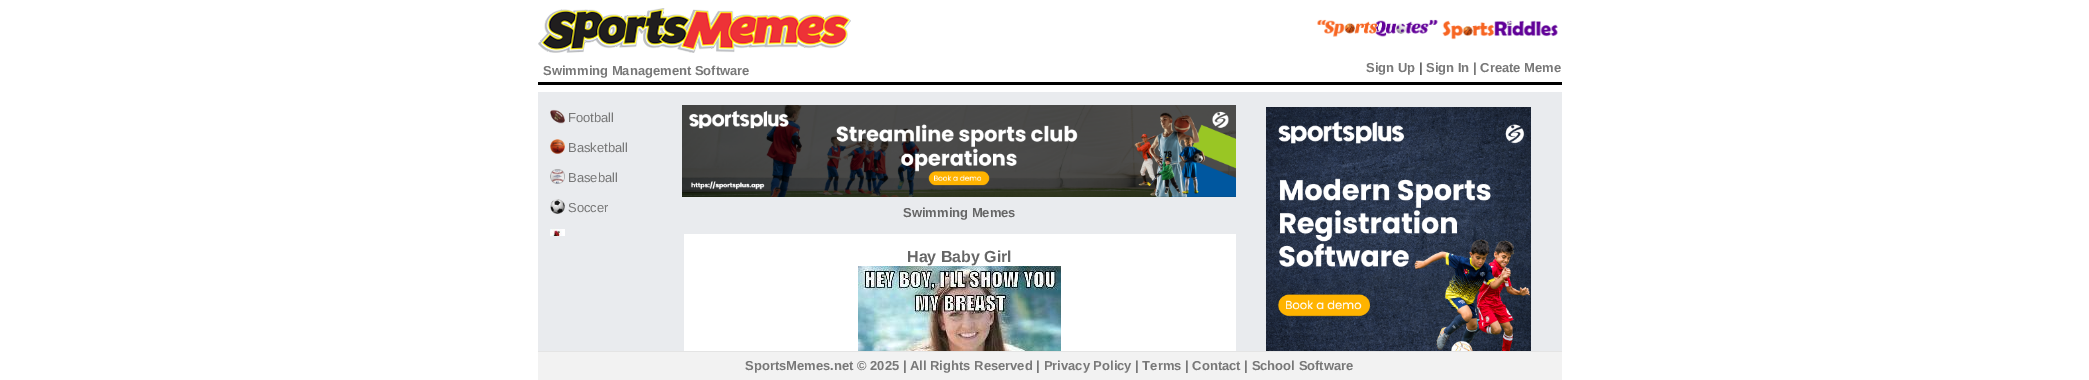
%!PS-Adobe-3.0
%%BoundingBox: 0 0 2089 380
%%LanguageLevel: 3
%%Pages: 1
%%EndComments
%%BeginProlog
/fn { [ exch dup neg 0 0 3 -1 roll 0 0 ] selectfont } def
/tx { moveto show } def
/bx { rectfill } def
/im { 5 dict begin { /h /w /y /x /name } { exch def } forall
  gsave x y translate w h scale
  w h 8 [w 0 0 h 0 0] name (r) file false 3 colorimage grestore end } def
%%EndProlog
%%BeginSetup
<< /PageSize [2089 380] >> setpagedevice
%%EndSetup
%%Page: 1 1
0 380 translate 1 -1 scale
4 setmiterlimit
1 setgray
0 0 2089 380 bx
0 setgray
538 82 1024 3 bx
(image0.raw) 1317 19 121 18 im
(image1.raw) 1442 20 116 20 im
(image2.raw) 538 8 313 45 im
/LiberationSans-Bold 13 fn
0.471 setgray
(Swimming Management Software) 543 75 tx
(Sign Up) 1366 72 tx
0.4 setgray
(|) 1419 72 tx
0.471 setgray
(Sign In | Create Meme) 1426 72 tx
0.914 0.922 0.933 setrgbcolor
538 92 1024 259 bx
(image3.raw) 550 109 15 15 im
/LiberationSans-Regular 13 fn
0.471 setgray
(Football) 568 122 tx
(image4.raw) 550 139 15 15 im
(Basketball) 568 152 tx
(image5.raw) 550 169 15 15 im
(Baseball) 568 182 tx
(image6.raw) 550 199 15 15 im
(Soccer) 568 212 tx
(image7.raw) 550 229 15 7 im
(image8.raw) 682 105 554 92 im
(image9.raw) 1266 107 265 244 im
/LiberationSans-Bold 13 fn
0.4 setgray
(Swimming Memes) 903 217 tx
1 setgray
684 234 552 117 bx
/LiberationSans-Bold 16 fn
0.4 setgray
(Hay Baby Girl) 907 262 tx
(image10.raw) 858 266 203 85 im
0.949 setgray
538 352 1024 28 bx
0.894 setgray
538 351 1024 1 bx
/LiberationSans-Bold 13 fn
0.471 setgray
(SportsMemes.net © 2025 | All Rights Reserved | Privacy Policy | Terms | Contact | School Software) 745 370 tx
showpage
%%EOF
